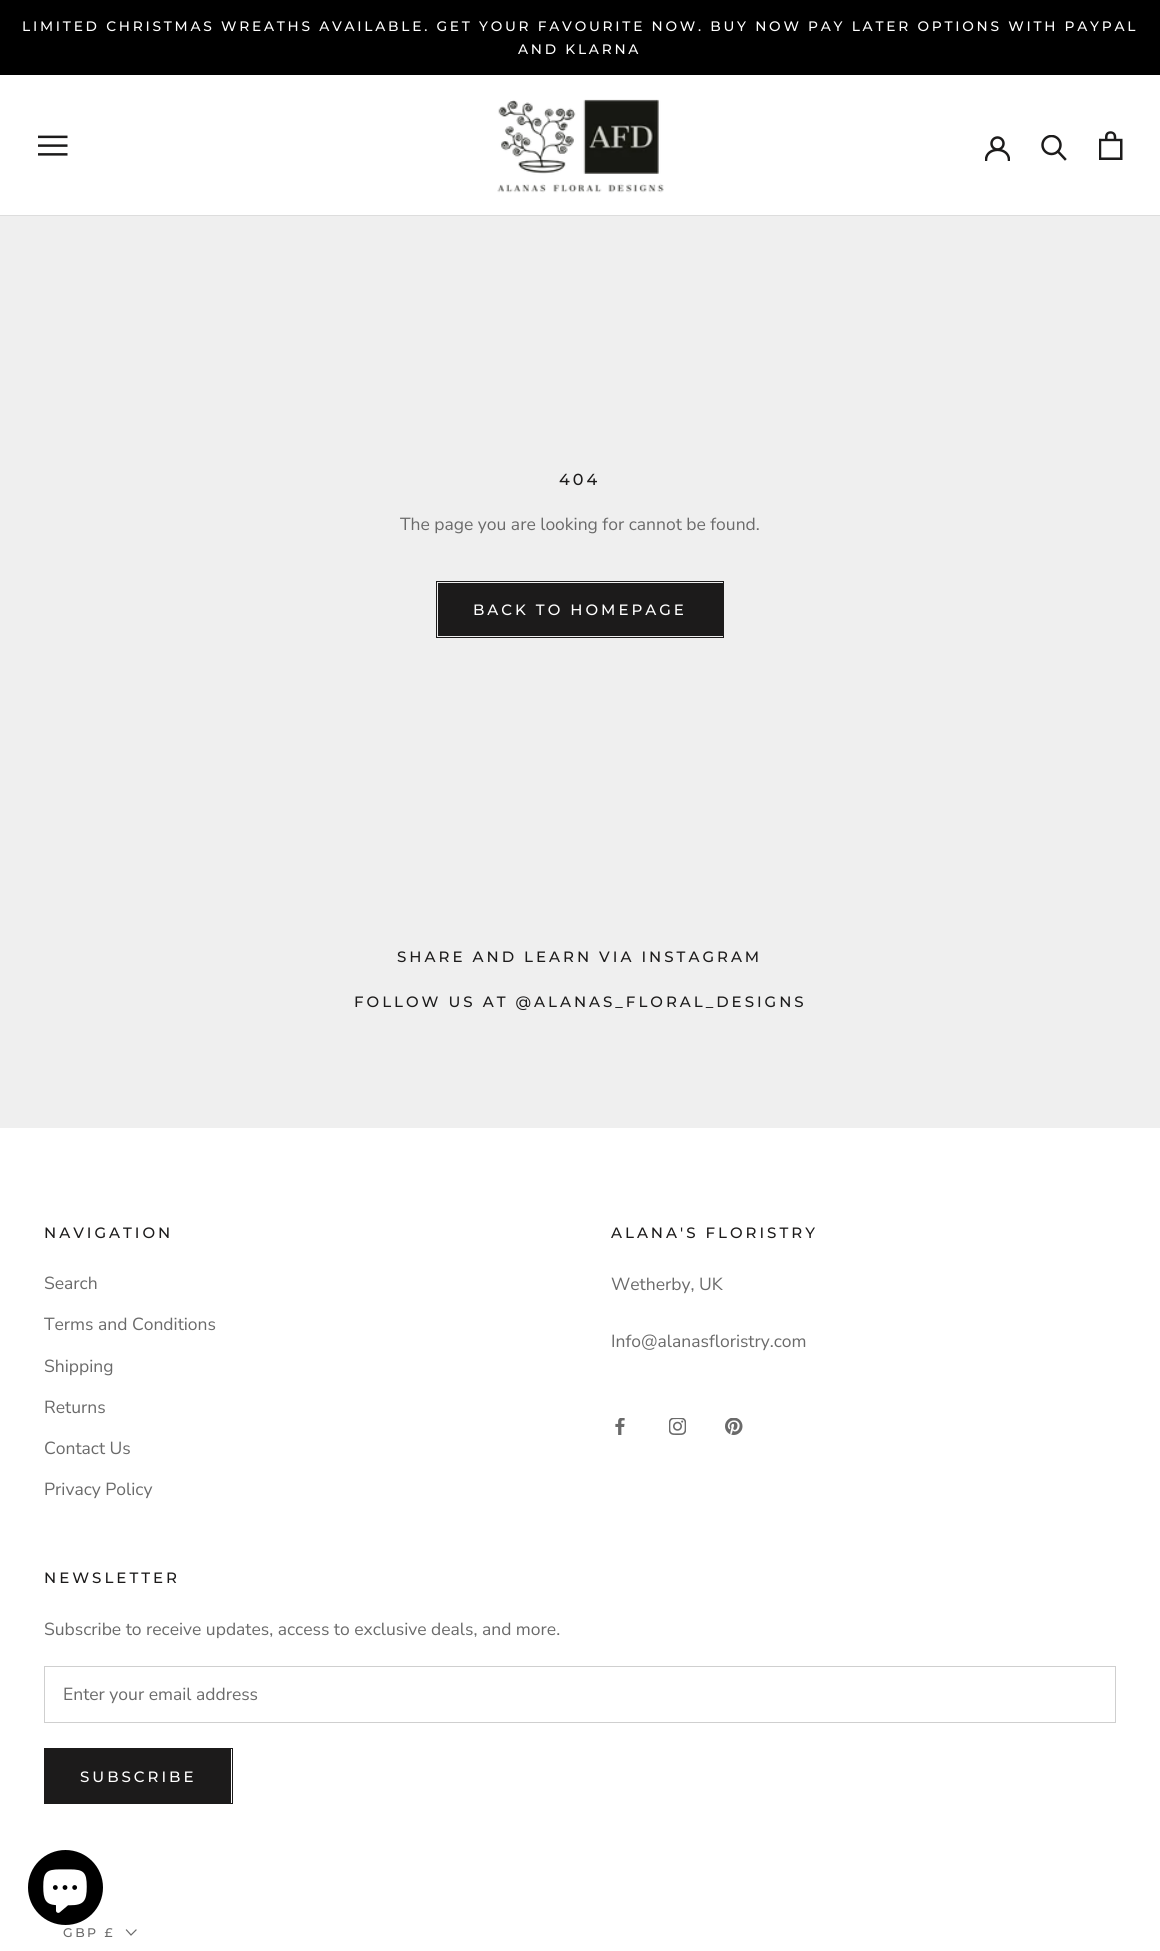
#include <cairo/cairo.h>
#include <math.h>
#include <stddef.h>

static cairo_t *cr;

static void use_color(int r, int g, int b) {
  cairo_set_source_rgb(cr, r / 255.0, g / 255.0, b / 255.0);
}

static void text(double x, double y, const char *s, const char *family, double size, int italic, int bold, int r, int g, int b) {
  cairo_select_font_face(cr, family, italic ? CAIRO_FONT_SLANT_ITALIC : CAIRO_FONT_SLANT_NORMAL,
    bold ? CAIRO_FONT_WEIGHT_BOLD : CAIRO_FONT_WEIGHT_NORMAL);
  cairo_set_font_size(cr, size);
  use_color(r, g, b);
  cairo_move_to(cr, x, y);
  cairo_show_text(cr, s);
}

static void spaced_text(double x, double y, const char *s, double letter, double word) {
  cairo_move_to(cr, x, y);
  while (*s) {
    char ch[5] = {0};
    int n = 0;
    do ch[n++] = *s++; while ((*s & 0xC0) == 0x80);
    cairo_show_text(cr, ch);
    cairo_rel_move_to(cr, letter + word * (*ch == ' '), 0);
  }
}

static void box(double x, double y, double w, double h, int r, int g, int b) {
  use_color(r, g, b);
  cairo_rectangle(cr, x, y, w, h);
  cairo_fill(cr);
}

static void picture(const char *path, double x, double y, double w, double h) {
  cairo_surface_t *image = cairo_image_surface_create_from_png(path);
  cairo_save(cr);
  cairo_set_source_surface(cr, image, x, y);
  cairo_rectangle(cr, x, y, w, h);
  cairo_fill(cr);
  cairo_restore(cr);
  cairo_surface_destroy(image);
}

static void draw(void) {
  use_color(239, 239, 239);
  cairo_paint(cr);
  box(0, 0, 1160, 75, 0, 0, 0);
  box(0, 75, 1160, 140, 255, 255, 255);
  box(0, 215, 1160, 1, 221, 221, 221);
  picture("img_01.png", 38, 135, 30, 21);
  picture("img_02.png", 497, 99, 167, 94);
  cairo_save(cr);
  cairo_rectangle(cr, 985, 136, 25, 25);
  cairo_clip(cr);
  cairo_new_path(cr);
  cairo_move_to(cr, 986, 160);
  cairo_curve_to(cr, 986, 146.5, 1009, 146.5, 1009, 160);
  use_color(28, 27, 27);
  cairo_set_line_width(cr, 2.5);
  cairo_set_line_cap(cr, CAIRO_LINE_CAP_SQUARE);
  cairo_stroke(cr);
  cairo_restore(cr);
  cairo_arc(cr, 997.5, 143.5, 6, 0, 2 * M_PI);
  use_color(28, 27, 27);
  cairo_set_line_width(cr, 2.5);
  cairo_stroke(cr);
  cairo_new_path(cr);
  cairo_move_to(cr, 1065, 159);
  cairo_line_to(cr, 1058, 151.5);
  cairo_set_line_cap(cr, CAIRO_LINE_CAP_SQUARE);
  cairo_stroke(cr);
  cairo_save(cr);
  cairo_rectangle(cr, 1041, 135, 27, 26);
  cairo_clip(cr);
  cairo_arc(cr, 1051.5, 145, 9, 0, 2 * M_PI);
  cairo_set_line_cap(cr, CAIRO_LINE_CAP_BUTT);
  cairo_stroke(cr);
  cairo_restore(cr);
  picture("img_03.png", 1099, 131, 24, 29);
  cairo_rectangle(cr, 436.5, 581.5, 287, 56);
  cairo_set_line_width(cr, 1);
  cairo_set_line_cap(cr, CAIRO_LINE_CAP_BUTT);
  cairo_stroke(cr);
  box(438, 583, 285, 53, 28, 27, 27);
  box(0, 1128, 1160, 823, 255, 255, 255);
  picture("img_04.png", 615, 1418, 10, 17);
  picture("img_05.png", 669, 1418, 17, 17);
  picture("img_06.png", 725, 1418, 18, 17);
  cairo_rectangle(cr, 44.5, 1666.5, 1071, 56);
  use_color(207, 207, 207);
  cairo_stroke(cr);
  cairo_rectangle(cr, 44.5, 1748.5, 188, 55);
  use_color(28, 27, 27);
  cairo_stroke(cr);
  box(45, 1749, 186, 54, 28, 27, 27);
  cairo_new_path(cr);
  cairo_move_to(cr, 136, 1930);
  cairo_line_to(cr, 131, 1935);
  cairo_line_to(cr, 126.5, 1930);
  use_color(106, 106, 106);
  cairo_set_line_width(cr, 1.2);
  cairo_set_line_cap(cr, CAIRO_LINE_CAP_SQUARE);
  cairo_stroke(cr);
  use_color(0, 0, 0);
  cairo_arc(cr, 65.5, 1887.5, 37.5, 0, 2 * M_PI);
  cairo_fill(cr);
  picture("img_07.png", 43, 1869, 44, 44);
  cairo_select_font_face(cr, "Montserrat Medium", CAIRO_FONT_SLANT_NORMAL, CAIRO_FONT_WEIGHT_NORMAL);
  cairo_set_font_size(cr, 13.75);
  use_color(255, 255, 255);
  spaced_text(22, 31, "LIMITED CHRISTMAS WREATHS AVAILABLE. GET YOUR FAVOURITE NOW. BUY NOW PAY LATER OPTIONS WITH PAYPAL", 2.75, 0);
  spaced_text(518, 54, "AND KLARNA", 2.75, 0);
  cairo_set_font_size(cr, 16);
  use_color(28, 27, 27);
  spaced_text(559, 485, "404", 3, 0);
  text(400, 530, "The page you are looking for cannot be found.", "Nunito Sans", 17.5, 0, 0, 106, 106, 106);
  cairo_select_font_face(cr, "Montserrat Medium", CAIRO_FONT_SLANT_NORMAL, CAIRO_FONT_WEIGHT_NORMAL);
  cairo_set_font_size(cr, 15);
  use_color(255, 255, 255);
  spaced_text(473, 615, "BACK TO HOMEPAGE", 3, 0);
  use_color(28, 27, 27);
  spaced_text(397, 962, "SHARE AND LEARN VIA INSTAGRAM", 3, 0);
  spaced_text(354, 1007, "FOLLOW US AT @ALANAS_FLORAL_DESIGNS", 3, 0);
  spaced_text(44, 1238, "NAVIGATION", 3, 0);
  text(44, 1289, "Search", "Nunito Sans", 17.5, 0, 0, 106, 106, 106);
  text(44, 1330, "Terms and Conditions", "Nunito Sans", 17.5, 0, 0, 106, 106, 106);
  text(44, 1372, "Shipping", "Nunito Sans", 17.5, 0, 0, 106, 106, 106);
  text(44, 1413, "Returns", "Nunito Sans", 17.5, 0, 0, 106, 106, 106);
  text(44, 1454, "Contact Us", "Nunito Sans", 17.5, 0, 0, 106, 106, 106);
  text(44, 1495, "Privacy Policy", "Nunito Sans", 17.5, 0, 0, 106, 106, 106);
  cairo_select_font_face(cr, "Montserrat Medium", CAIRO_FONT_SLANT_NORMAL, CAIRO_FONT_WEIGHT_NORMAL);
  cairo_set_font_size(cr, 15);
  use_color(28, 27, 27);
  spaced_text(611, 1238, "ALANA'S FLORISTRY", 3, 0);
  text(611, 1290, "Wetherby, UK", "Nunito Sans", 17.5, 0, 0, 106, 106, 106);
  text(611, 1347, "Info@alanasfloristry.com", "Nunito Sans", 17.5, 0, 0, 106, 106, 106);
  cairo_select_font_face(cr, "Montserrat Medium", CAIRO_FONT_SLANT_NORMAL, CAIRO_FONT_WEIGHT_NORMAL);
  cairo_set_font_size(cr, 15);
  use_color(28, 27, 27);
  spaced_text(44, 1583, "NEWSLETTER", 3, 0);
  text(44, 1635, "Subscribe to receive updates, access to exclusive deals, and more.", "Nunito Sans", 17.5, 0, 0, 106, 106, 106);
  text(63, 1700, "Enter your email address", "Nunito Sans", 17.5, 0, 0, 106, 106, 106);
  cairo_select_font_face(cr, "Montserrat Medium", CAIRO_FONT_SLANT_NORMAL, CAIRO_FONT_WEIGHT_NORMAL);
  cairo_set_font_size(cr, 15);
  use_color(255, 255, 255);
  spaced_text(80, 1782, "SUBSCRIBE", 3, 0);
  cairo_set_font_size(cr, 12.5);
  use_color(106, 106, 106);
  spaced_text(63, 1937, "GBP £", 2.5, 0);
}

int main(void) {
  cairo_surface_t *surface = cairo_image_surface_create(CAIRO_FORMAT_RGB24, 1160, 1951);
  cr = cairo_create(surface);
  cairo_font_options_t *options = cairo_font_options_create();
  cairo_font_options_set_hint_metrics(options, CAIRO_HINT_METRICS_OFF);
  cairo_font_options_set_hint_style(options, CAIRO_HINT_STYLE_NONE);
  cairo_set_font_options(cr, options);
  cairo_set_miter_limit(cr, 4);
  draw();
  cairo_surface_write_to_png(surface, "out.png");
  cairo_font_options_destroy(options);
  cairo_destroy(cr);
  cairo_surface_destroy(surface);
  return 0;
}
